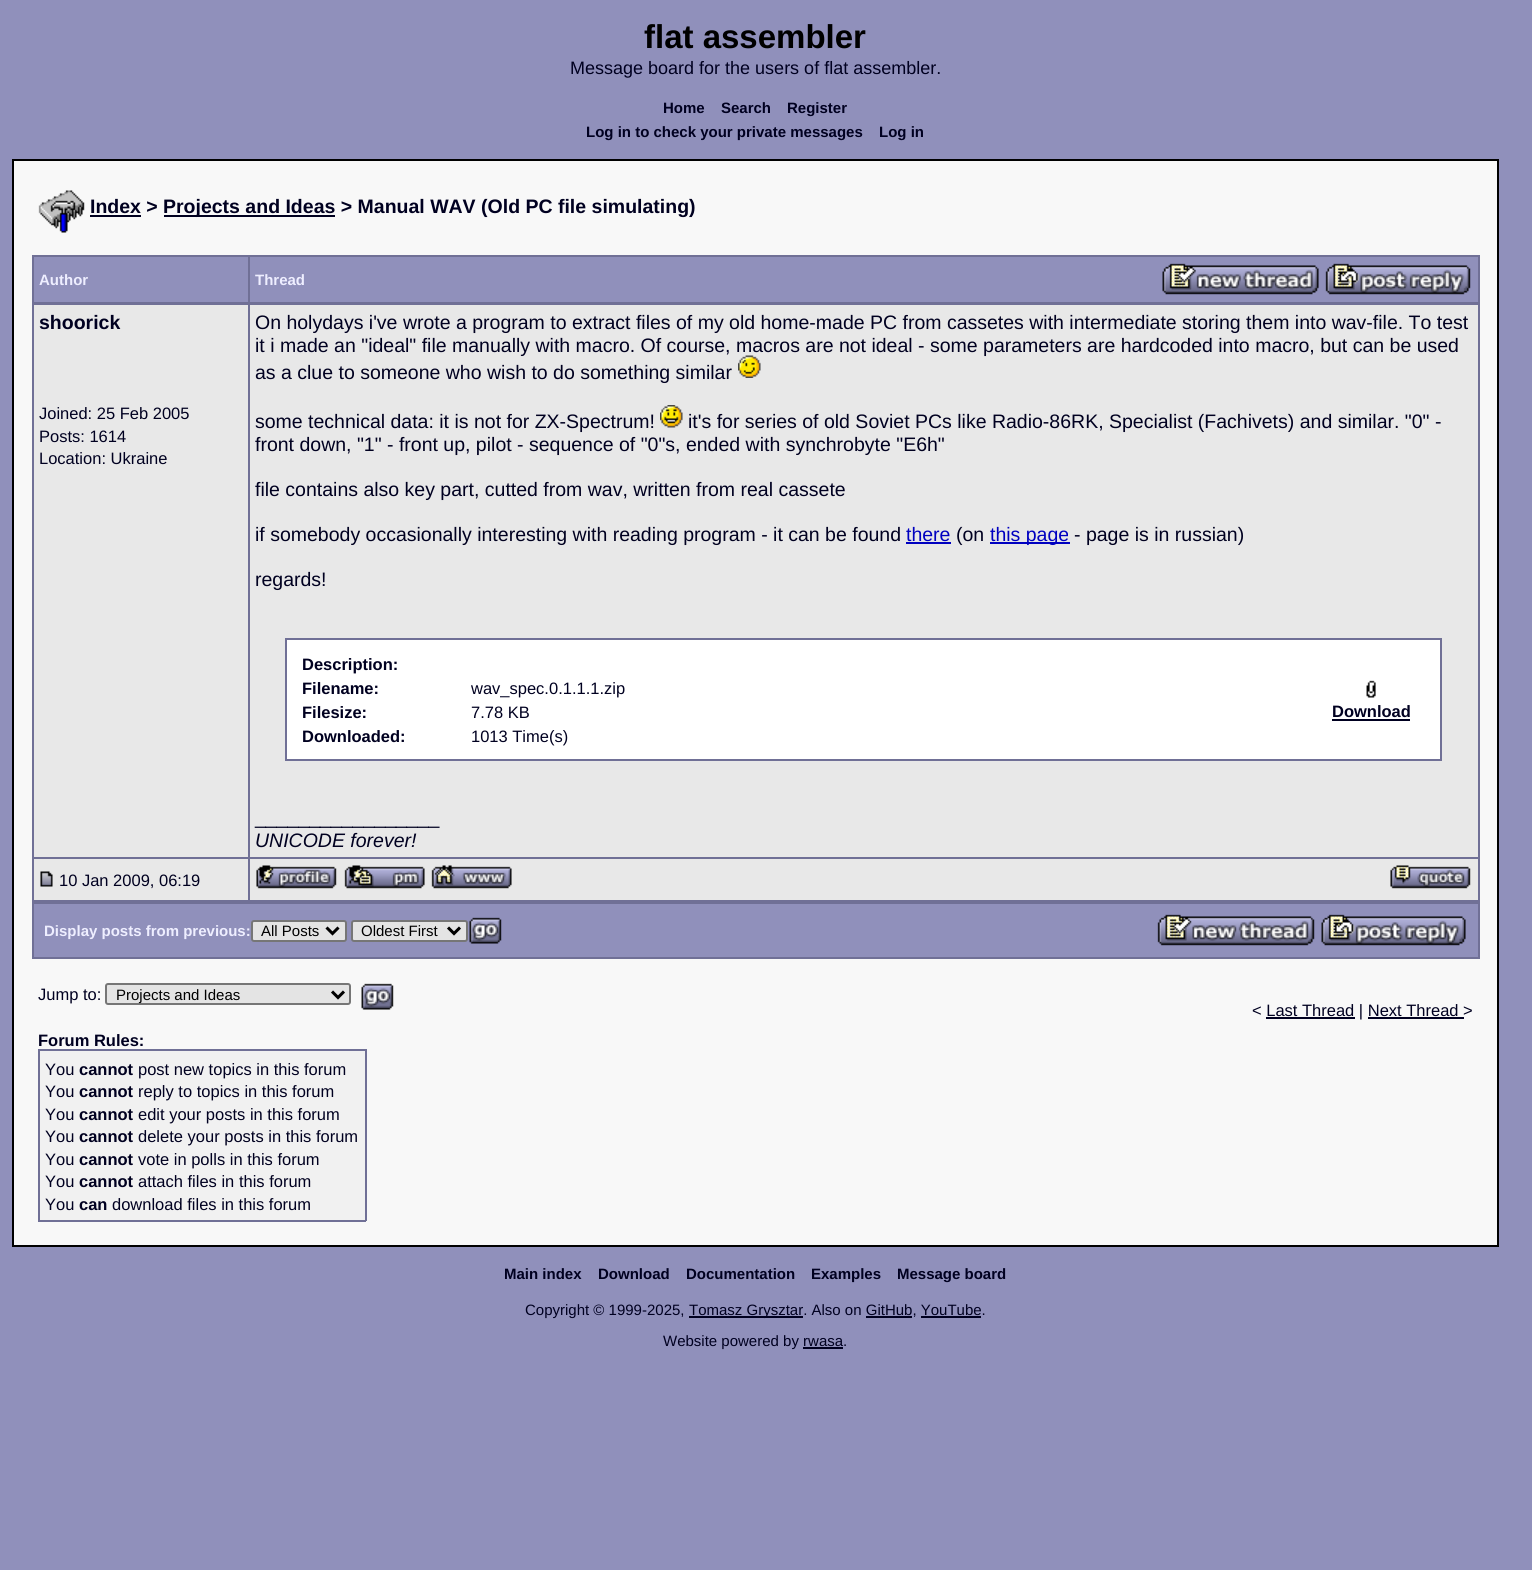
#include <cairo/cairo.h>
#include <math.h>
#include <stddef.h>

static cairo_t *cr;

static void use_color(int r, int g, int b) {
  cairo_set_source_rgb(cr, r / 255.0, g / 255.0, b / 255.0);
}

static void text(double x, double y, const char *s, const char *family, double size, int italic, int bold, int r, int g, int b) {
  cairo_select_font_face(cr, family, italic ? CAIRO_FONT_SLANT_ITALIC : CAIRO_FONT_SLANT_NORMAL,
    bold ? CAIRO_FONT_WEIGHT_BOLD : CAIRO_FONT_WEIGHT_NORMAL);
  cairo_set_font_size(cr, size);
  use_color(r, g, b);
  cairo_move_to(cr, x, y);
  cairo_show_text(cr, s);
}

static void box(double x, double y, double w, double h, int r, int g, int b) {
  use_color(r, g, b);
  cairo_rectangle(cr, x, y, w, h);
  cairo_fill(cr);
}

static void round_rect(double x, double y, double w, double h, double r) {
  cairo_new_sub_path(cr);
  cairo_arc(cr, x + w - r, y + h - r, r, 0, M_PI / 2);
  cairo_arc(cr, x + r, y + h - r, r, M_PI / 2, M_PI);
  cairo_arc(cr, x + r, y + r, r, M_PI, 1.5 * M_PI);
  cairo_arc(cr, x + w - r, y + r, r, 1.5 * M_PI, 2 * M_PI);
  cairo_close_path(cr);
}

static void picture(const char *path, double x, double y, double w, double h) {
  cairo_surface_t *image = cairo_image_surface_create_from_png(path);
  cairo_save(cr);
  cairo_set_source_surface(cr, image, x, y);
  cairo_rectangle(cr, x, y, w, h);
  cairo_fill(cr);
  cairo_restore(cr);
  cairo_surface_destroy(image);
}

static void draw(void) {
  use_color(144, 144, 187);
  cairo_paint(cr);
  use_color(248, 248, 248);
  cairo_rectangle(cr, 13, 160, 1485, 1086);
  cairo_fill_preserve(cr);
  use_color(0, 0, 0);
  cairo_stroke(cr);
  picture("img_01.png", 38, 190, 47, 43);
  box(90, 215, 51, 2, 0, 0, 32);
  box(164, 215, 171, 2, 0, 0, 32);
  box(32, 255, 1447, 2, 112, 112, 150);
  box(1478, 255, 2, 48, 112, 112, 150);
  box(32, 302, 1447, 3, 112, 112, 150);
  box(32, 255, 2, 48, 112, 112, 150);
  box(34, 257, 214, 45, 144, 144, 187);
  box(250, 257, 1228, 45, 144, 144, 187);
  box(248, 255, 2, 48, 112, 112, 150);
  picture("img_02.png", 1162, 263, 157, 32);
  picture("img_03.png", 1325, 263, 146, 32);
  box(1478, 303, 2, 599, 112, 112, 150);
  box(32, 900, 1447, 4, 112, 112, 150);
  box(32, 303, 2, 599, 112, 112, 150);
  box(34, 305, 214, 552, 232, 232, 232);
  box(250, 305, 1228, 552, 232, 232, 232);
  picture("img_05.png", 660, 405, 23, 23);
  box(906, 542, 45, 2, 0, 0, 192);
  box(990, 542, 80, 2, 0, 0, 192);
  use_color(255, 255, 255);
  cairo_rectangle(cr, 286, 639, 1155, 121);
  cairo_fill_preserve(cr);
  use_color(112, 112, 150);
  cairo_stroke(cr);
  picture("img_06.png", 1366, 680, 10, 18);
  box(1332, 719, 78, 2, 0, 0, 32);
  box(32, 857, 1447, 2, 112, 112, 150);
  box(34, 859, 214, 41, 232, 232, 232);
  picture("img_07.png", 40, 871, 13, 16);
  box(250, 859, 1228, 41, 232, 232, 232);
  box(248, 303, 2, 599, 112, 112, 150);
  picture("img_08.png", 256, 865, 81, 24);
  picture("img_09.png", 344, 865, 81, 24);
  picture("img_10.png", 431, 865, 81, 24);
  picture("img_11.png", 1390, 865, 81, 24);
  box(1478, 902, 2, 57, 112, 112, 150);
  box(32, 957, 1447, 2, 112, 112, 150);
  box(32, 902, 2, 57, 112, 112, 150);
  box(34, 904, 1444, 53, 144, 144, 187);
  use_color(228, 228, 228);
  round_rect(252, 921, 94, 20, 2);
  cairo_fill_preserve(cr);
  use_color(118, 118, 118);
  cairo_stroke(cr);
  cairo_new_path(cr);
  cairo_move_to(cr, 326.5, 927.5);
  cairo_line_to(cr, 332.5, 933.5);
  cairo_line_to(cr, 338.5, 927.5);
  use_color(0, 0, 0);
  cairo_set_line_width(cr, 3);
  cairo_stroke(cr);
  use_color(228, 228, 228);
  round_rect(352, 921, 115, 20, 2);
  cairo_fill_preserve(cr);
  use_color(118, 118, 118);
  cairo_set_line_width(cr, 2);
  cairo_stroke(cr);
  cairo_new_path(cr);
  cairo_move_to(cr, 448, 927.5);
  cairo_line_to(cr, 454, 933.5);
  cairo_line_to(cr, 460, 927.5);
  use_color(0, 0, 0);
  cairo_set_line_width(cr, 3);
  cairo_stroke(cr);
  picture("img_12.png", 469, 917, 33, 27);
  picture("img_13.png", 1157, 914, 158, 32);
  picture("img_14.png", 1321, 914, 145, 32);
  use_color(228, 228, 228);
  round_rect(106, 984, 244, 20, 2);
  cairo_fill_preserve(cr);
  use_color(118, 118, 118);
  cairo_set_line_width(cr, 2);
  cairo_stroke(cr);
  cairo_new_path(cr);
  cairo_move_to(cr, 332, 991.5);
  cairo_line_to(cr, 338, 997.5);
  cairo_line_to(cr, 344, 991.5);
  use_color(0, 0, 0);
  cairo_set_line_width(cr, 3);
  cairo_stroke(cr);
  picture("img_15.png", 361, 983, 33, 27);
  box(1266, 1017, 89, 2, 0, 0, 32);
  box(1368, 1017, 96, 2, 0, 0, 32);
  box(38, 1049, 328, 2, 112, 112, 150);
  box(365, 1049, 2, 172, 112, 112, 150);
  box(38, 1220, 328, 2, 112, 112, 150);
  box(38, 1049, 2, 172, 112, 112, 150);
  box(40, 1051, 325, 169, 241, 241, 241);
  box(689, 1316, 114, 2, 0, 0, 32);
  box(866, 1316, 46, 2, 0, 0, 32);
  box(921, 1316, 60, 2, 0, 0, 32);
  box(803, 1347, 40, 2, 0, 0, 32);
  text(644, 48, "flat assembler", "Liberation Sans", 33, 0, 1, 0, 0, 0);
  text(570, 74, "Message board for the users of flat assembler.", "Liberation Sans", 18, 0, 0, 0, 0, 32);
  text(663, 113, "Home", "Liberation Sans", 15, 0, 1, 0, 0, 32);
  text(721, 113, "Search", "Liberation Sans", 15, 0, 1, 0, 0, 32);
  text(787, 113, "Register", "Liberation Sans", 15, 0, 1, 0, 0, 32);
  text(586, 137, "Log in to check your private messages", "Liberation Sans", 15, 0, 1, 0, 0, 32);
  text(879, 137, "Log in", "Liberation Sans", 15, 0, 1, 0, 0, 32);
  text(90, 213, "Index >", "Liberation Sans", 19.5, 0, 1, 0, 0, 32);
  text(163, 213, "Projects and Ideas > Manual WAV (Old PC file simulating)", "Liberation Sans", 19.5, 0, 1, 0, 0, 32);
  text(39, 285, "Author", "Liberation Sans", 15, 0, 1, 238, 238, 255);
  text(255, 285, "Thread", "Liberation Sans", 15, 0, 1, 238, 238, 255);
  text(39, 329, "shoorick", "Liberation Sans", 19.5, 0, 1, 0, 0, 32);
  text(39, 419, "Joined: 25 Feb 2005", "Liberation Sans", 16.5, 0, 0, 0, 0, 32);
  text(39, 442, "Posts: 1614", "Liberation Sans", 16.5, 0, 0, 0, 0, 32);
  text(39, 464, "Location: Ukraine", "Liberation Sans", 16.5, 0, 0, 0, 0, 32);
  text(255, 329, "On holydays i've wrote a program to extract files of my old home-made PC from cassetes with intermediate storing them into wav-file. To test", "Liberation Sans", 19.5, 0, 0, 0, 0, 32);
  text(255, 352, "it i made an \"ideal\" file manually with macro. Of course, macros are not ideal - some parameters are hardcoded into macro, but can be used", "Liberation Sans", 19.5, 0, 0, 0, 0, 32);
  text(255, 379, "as a clue to someone who wish to do something similar", "Liberation Sans", 19.5, 0, 0, 0, 0, 32);
  picture("img_04.png", 738, 355, 23, 23);
  text(255, 428, "some technical data: it is not for ZX-Spectrum!", "Liberation Sans", 19.5, 0, 0, 0, 0, 32);
  text(688, 428, "it's for series of old Soviet PCs like Radio-86RK, Specialist (Fachivets) and similar. \"0\" -", "Liberation Sans", 19.5, 0, 0, 0, 0, 32);
  text(255, 451, "front down, \"1\" - front up, pilot - sequence of \"0\"s, ended with synchrobyte \"E6h\"", "Liberation Sans", 19.5, 0, 0, 0, 0, 32);
  text(255, 496, "file contains also key part, cutted from wav, written from real cassete", "Liberation Sans", 19.5, 0, 0, 0, 0, 32);
  text(255, 541, "if somebody occasionally interesting with reading program - it can be found", "Liberation Sans", 19.5, 0, 0, 0, 0, 32);
  text(906, 541, "there", "Liberation Sans", 19.5, 0, 0, 0, 0, 192);
  text(956, 541, "(on", "Liberation Sans", 19.5, 0, 0, 0, 0, 32);
  text(990, 541, "this page", "Liberation Sans", 19.5, 0, 0, 0, 0, 192);
  text(1074, 541, "- page is in russian)", "Liberation Sans", 19.5, 0, 0, 0, 0, 32);
  text(255, 586, "regards!", "Liberation Sans", 19.5, 0, 0, 0, 0, 32);
  text(302, 670, "Description:", "Liberation Sans", 16.5, 0, 1, 0, 0, 32);
  text(1332, 717, "Download", "Liberation Sans", 16.5, 0, 1, 0, 0, 32);
  text(302, 694, "Filename:", "Liberation Sans", 16.5, 0, 1, 0, 0, 32);
  text(471, 694, "wav_spec.0.1.1.1.zip", "Liberation Sans", 16.5, 0, 0, 0, 0, 32);
  text(302, 718, "Filesize:", "Liberation Sans", 16.5, 0, 1, 0, 0, 32);
  text(471, 718, "7.78 KB", "Liberation Sans", 16.5, 0, 0, 0, 0, 32);
  text(302, 742, "Downloaded:", "Liberation Sans", 16.5, 0, 1, 0, 0, 32);
  text(471, 742, "1013 Time(s)", "Liberation Sans", 16.5, 0, 0, 0, 0, 32);
  text(255, 824, "_________________", "Liberation Sans", 19.5, 0, 0, 0, 0, 32);
  text(255, 847, "UNICODE forever!", "Liberation Sans", 19.5, 1, 0, 0, 0, 32);
  text(59, 886, "10 Jan 2009, 06:19", "Liberation Sans", 16.5, 0, 0, 0, 0, 32);
  text(44, 936, "Display posts from previous:", "Liberation Sans", 15, 0, 1, 238, 238, 255);
  text(261, 936, "All Posts", "Liberation Sans", 15, 0, 0, 0, 0, 0);
  text(361, 936, "Oldest First", "Liberation Sans", 15, 0, 0, 0, 0, 0);
  text(38, 1000, "Jump to:", "Liberation Sans", 16.5, 0, 0, 0, 0, 32);
  text(116, 1000, "Projects and Ideas", "Liberation Sans", 15, 0, 0, 0, 0, 0);
  text(1252, 1016, "< Last Thread | Next Thread >", "Liberation Sans", 16.5, 0, 0, 0, 0, 32);
  text(38, 1046, "Forum Rules:", "Liberation Sans", 16.5, 0, 1, 0, 0, 32);
  text(45, 1075, "You", "Liberation Sans", 16.5, 0, 0, 0, 0, 32);
  text(79, 1075, "cannot", "Liberation Sans", 16.5, 0, 1, 0, 0, 32);
  text(138, 1075, "post new topics in this forum", "Liberation Sans", 16.5, 0, 0, 0, 0, 32);
  text(45, 1097, "You", "Liberation Sans", 16.5, 0, 0, 0, 0, 32);
  text(79, 1097, "cannot", "Liberation Sans", 16.5, 0, 1, 0, 0, 32);
  text(138, 1097, "reply to topics in this forum", "Liberation Sans", 16.5, 0, 0, 0, 0, 32);
  text(45, 1120, "You", "Liberation Sans", 16.5, 0, 0, 0, 0, 32);
  text(79, 1120, "cannot", "Liberation Sans", 16.5, 0, 1, 0, 0, 32);
  text(138, 1120, "edit your posts in this forum", "Liberation Sans", 16.5, 0, 0, 0, 0, 32);
  text(45, 1142, "You", "Liberation Sans", 16.5, 0, 0, 0, 0, 32);
  text(79, 1142, "cannot", "Liberation Sans", 16.5, 0, 1, 0, 0, 32);
  text(138, 1142, "delete your posts in this forum", "Liberation Sans", 16.5, 0, 0, 0, 0, 32);
  text(45, 1165, "You", "Liberation Sans", 16.5, 0, 0, 0, 0, 32);
  text(79, 1165, "cannot", "Liberation Sans", 16.5, 0, 1, 0, 0, 32);
  text(138, 1165, "vote in polls in this forum", "Liberation Sans", 16.5, 0, 0, 0, 0, 32);
  text(45, 1187, "You", "Liberation Sans", 16.5, 0, 0, 0, 0, 32);
  text(79, 1187, "cannot", "Liberation Sans", 16.5, 0, 1, 0, 0, 32);
  text(138, 1187, "attach files in this forum", "Liberation Sans", 16.5, 0, 0, 0, 0, 32);
  text(45, 1210, "You", "Liberation Sans", 16.5, 0, 0, 0, 0, 32);
  text(79, 1210, "can", "Liberation Sans", 16.5, 0, 1, 0, 0, 32);
  text(112, 1210, "download files in this forum", "Liberation Sans", 16.5, 0, 0, 0, 0, 32);
  text(504, 1279, "Main index", "Liberation Sans", 15, 0, 1, 0, 0, 32);
  text(598, 1279, "Download", "Liberation Sans", 15, 0, 1, 0, 0, 32);
  text(686, 1279, "Documentation", "Liberation Sans", 15, 0, 1, 0, 0, 32);
  text(811, 1279, "Examples", "Liberation Sans", 15, 0, 1, 0, 0, 32);
  text(897, 1279, "Message board", "Liberation Sans", 15, 0, 1, 0, 0, 32);
  text(525, 1315, "Copyright © 1999-2025,", "Liberation Sans", 15, 0, 0, 0, 0, 32);
  text(689, 1315, "Tomasz Grysztar. Also on GitHub, YouTube.", "Liberation Sans", 15, 0, 0, 0, 0, 32);
  text(663, 1346, "Website powered by rwasa.", "Liberation Sans", 15, 0, 0, 0, 0, 32);
}

int main(void) {
  cairo_surface_t *surface = cairo_image_surface_create(CAIRO_FORMAT_RGB24, 1532, 1570);
  cr = cairo_create(surface);
  cairo_font_options_t *options = cairo_font_options_create();
  cairo_font_options_set_hint_metrics(options, CAIRO_HINT_METRICS_OFF);
  cairo_font_options_set_hint_style(options, CAIRO_HINT_STYLE_NONE);
  cairo_set_font_options(cr, options);
  cairo_set_miter_limit(cr, 4);
  draw();
  cairo_surface_write_to_png(surface, "out.png");
  cairo_font_options_destroy(options);
  cairo_destroy(cr);
  cairo_surface_destroy(surface);
  return 0;
}
